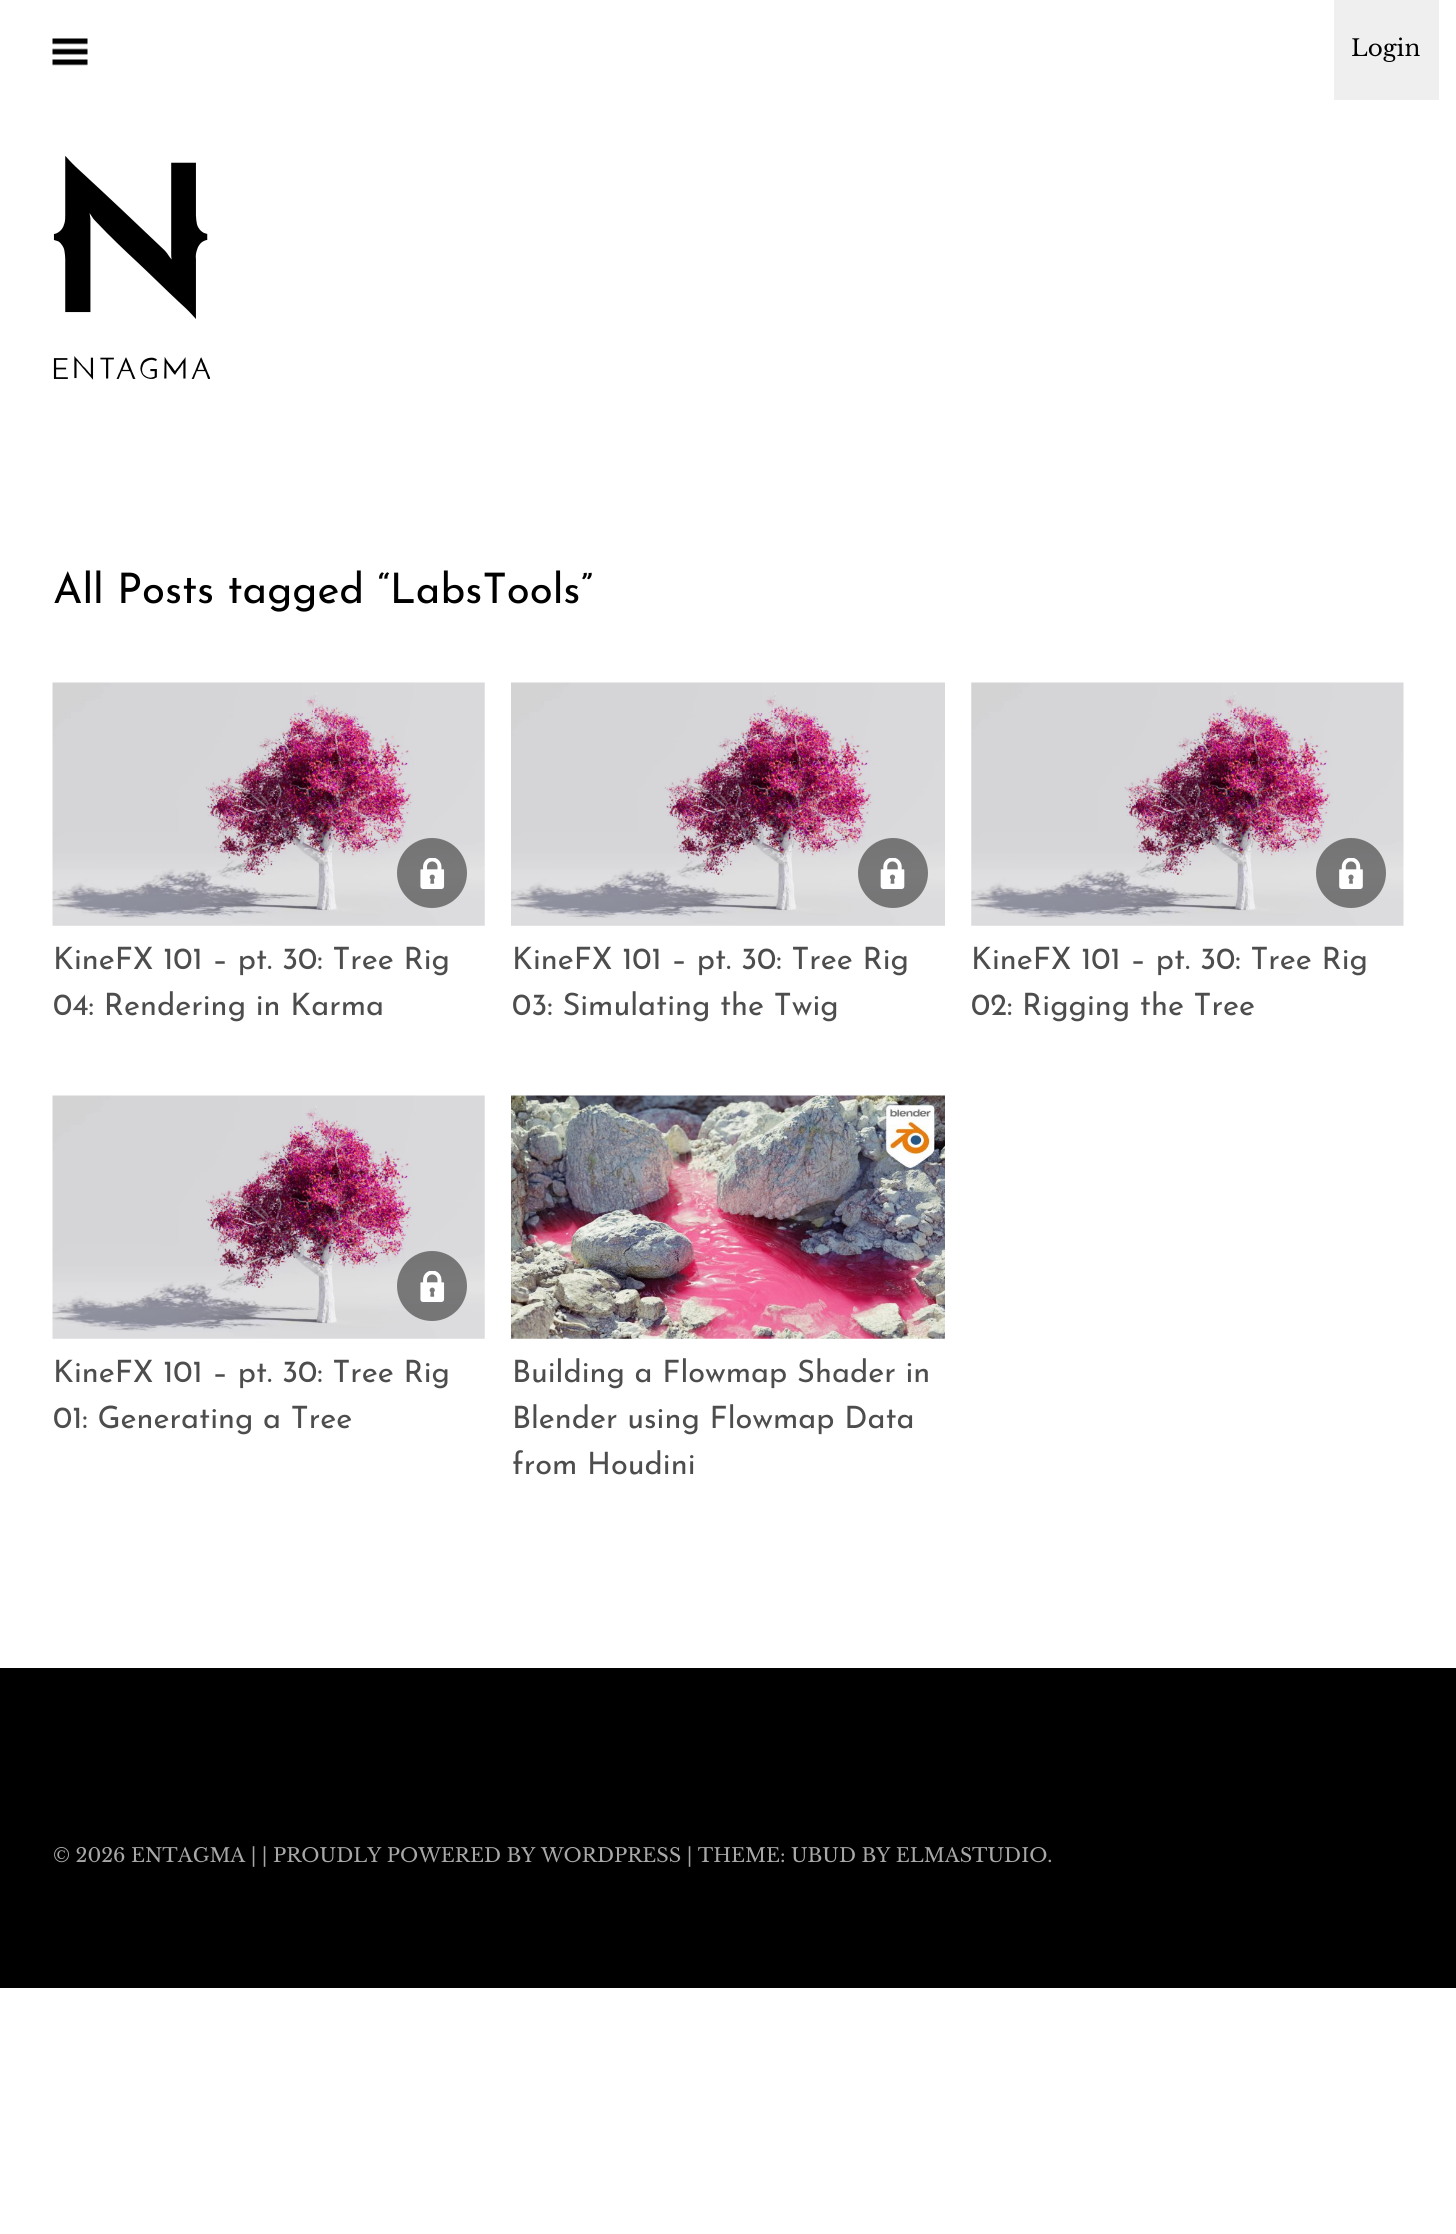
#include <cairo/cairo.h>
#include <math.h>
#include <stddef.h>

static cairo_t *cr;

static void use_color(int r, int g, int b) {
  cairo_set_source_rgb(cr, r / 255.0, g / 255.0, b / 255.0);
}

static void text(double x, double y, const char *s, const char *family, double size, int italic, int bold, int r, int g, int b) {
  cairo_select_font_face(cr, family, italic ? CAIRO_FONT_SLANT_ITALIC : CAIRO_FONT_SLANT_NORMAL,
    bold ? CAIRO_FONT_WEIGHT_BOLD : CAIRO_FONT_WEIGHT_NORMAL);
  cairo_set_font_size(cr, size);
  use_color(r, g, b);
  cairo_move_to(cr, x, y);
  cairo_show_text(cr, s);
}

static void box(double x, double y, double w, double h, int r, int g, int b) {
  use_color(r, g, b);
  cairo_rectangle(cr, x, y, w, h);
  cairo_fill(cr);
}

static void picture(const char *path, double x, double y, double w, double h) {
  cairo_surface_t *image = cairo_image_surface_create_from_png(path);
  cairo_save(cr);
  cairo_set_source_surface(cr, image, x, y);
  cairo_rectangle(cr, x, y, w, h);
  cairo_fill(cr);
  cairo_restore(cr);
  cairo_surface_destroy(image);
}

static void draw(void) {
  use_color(255, 255, 255);
  cairo_paint(cr);
  picture("img_01.png", 52, 38, 36, 28);
  box(1334, 0, 105, 100, 239, 239, 239);
  picture("img_02.png", 53, 156, 157, 224);
  picture("img_03.png", 52, 682, 433, 244);
  cairo_set_source_rgba(cr, 0.2, 0.2, 0.2, 0.6);
  cairo_arc(cr, 432, 873, 35, 0, 2 * M_PI);
  cairo_fill(cr);
  picture("img_04.png", 420, 858, 25, 31);
  picture("img_05.png", 511, 682, 434, 244);
  cairo_arc(cr, 893, 873, 35, 0, 2 * M_PI);
  cairo_fill(cr);
  picture("img_06.png", 880, 858, 25, 31);
  picture("img_07.png", 971, 682, 433, 244);
  cairo_arc(cr, 1351, 873, 35, 0, 2 * M_PI);
  cairo_fill(cr);
  picture("img_08.png", 1339, 858, 24, 31);
  picture("img_03.png", 52, 1095, 433, 244);
  cairo_arc(cr, 432, 1286, 35, 0, 2 * M_PI);
  cairo_fill(cr);
  picture("img_04.png", 420, 1271, 25, 31);
  picture("img_09.png", 511, 1095, 434, 244);
  box(0, 1668, 1456, 320, 0, 0, 0);
  text(1351, 56, "Login", "Libre Baskerville", 23, 0, 0, 0, 0, 0);
  text(53, 603, "All Posts tagged “LabsTools”", "Josefin Sans", 42, 0, 0, 0, 0, 0);
  text(53, 969, "KineFX 101 – pt. 30: Tree Rig", "Josefin Sans", 30.75, 0, 0, 77, 77, 77);
  text(53, 1015, "04: Rendering in Karma", "Josefin Sans", 30.75, 0, 0, 77, 77, 77);
  text(512, 969, "KineFX 101 – pt. 30: Tree Rig", "Josefin Sans", 30.75, 0, 0, 77, 77, 77);
  text(512, 1015, "03: Simulating the Twig", "Josefin Sans", 30.75, 0, 0, 77, 77, 77);
  text(971, 969, "KineFX 101 – pt. 30: Tree Rig", "Josefin Sans", 30.75, 0, 0, 77, 77, 77);
  text(971, 1015, "02: Rigging the Tree", "Josefin Sans", 30.75, 0, 0, 77, 77, 77);
  text(53, 1382, "KineFX 101 – pt. 30: Tree Rig", "Josefin Sans", 30.75, 0, 0, 77, 77, 77);
  text(53, 1428, "01: Generating a Tree", "Josefin Sans", 30.75, 0, 0, 77, 77, 77);
  text(512, 1382, "Building a Flowmap Shader in", "Josefin Sans", 30.75, 0, 0, 77, 77, 77);
  text(512, 1428, "Blender using Flowmap Data", "Josefin Sans", 30.75, 0, 0, 77, 77, 77);
  text(512, 1474, "from Houdini", "Josefin Sans", 30.75, 0, 0, 77, 77, 77);
  text(53, 1862, "© 2026 ENTAGMA | | PROUDLY POWERED BY WORDPRESS | THEME: UBUD BY ELMASTUDIO.", "Libre Baskerville", 19.25, 0, 0, 168, 168, 168);
}

int main(void) {
  cairo_surface_t *surface = cairo_image_surface_create(CAIRO_FORMAT_RGB24, 1456, 2234);
  cr = cairo_create(surface);
  cairo_font_options_t *options = cairo_font_options_create();
  cairo_font_options_set_hint_metrics(options, CAIRO_HINT_METRICS_OFF);
  cairo_font_options_set_hint_style(options, CAIRO_HINT_STYLE_NONE);
  cairo_set_font_options(cr, options);
  cairo_set_miter_limit(cr, 4);
  draw();
  cairo_surface_write_to_png(surface, "out.png");
  cairo_font_options_destroy(options);
  cairo_destroy(cr);
  cairo_surface_destroy(surface);
  return 0;
}
